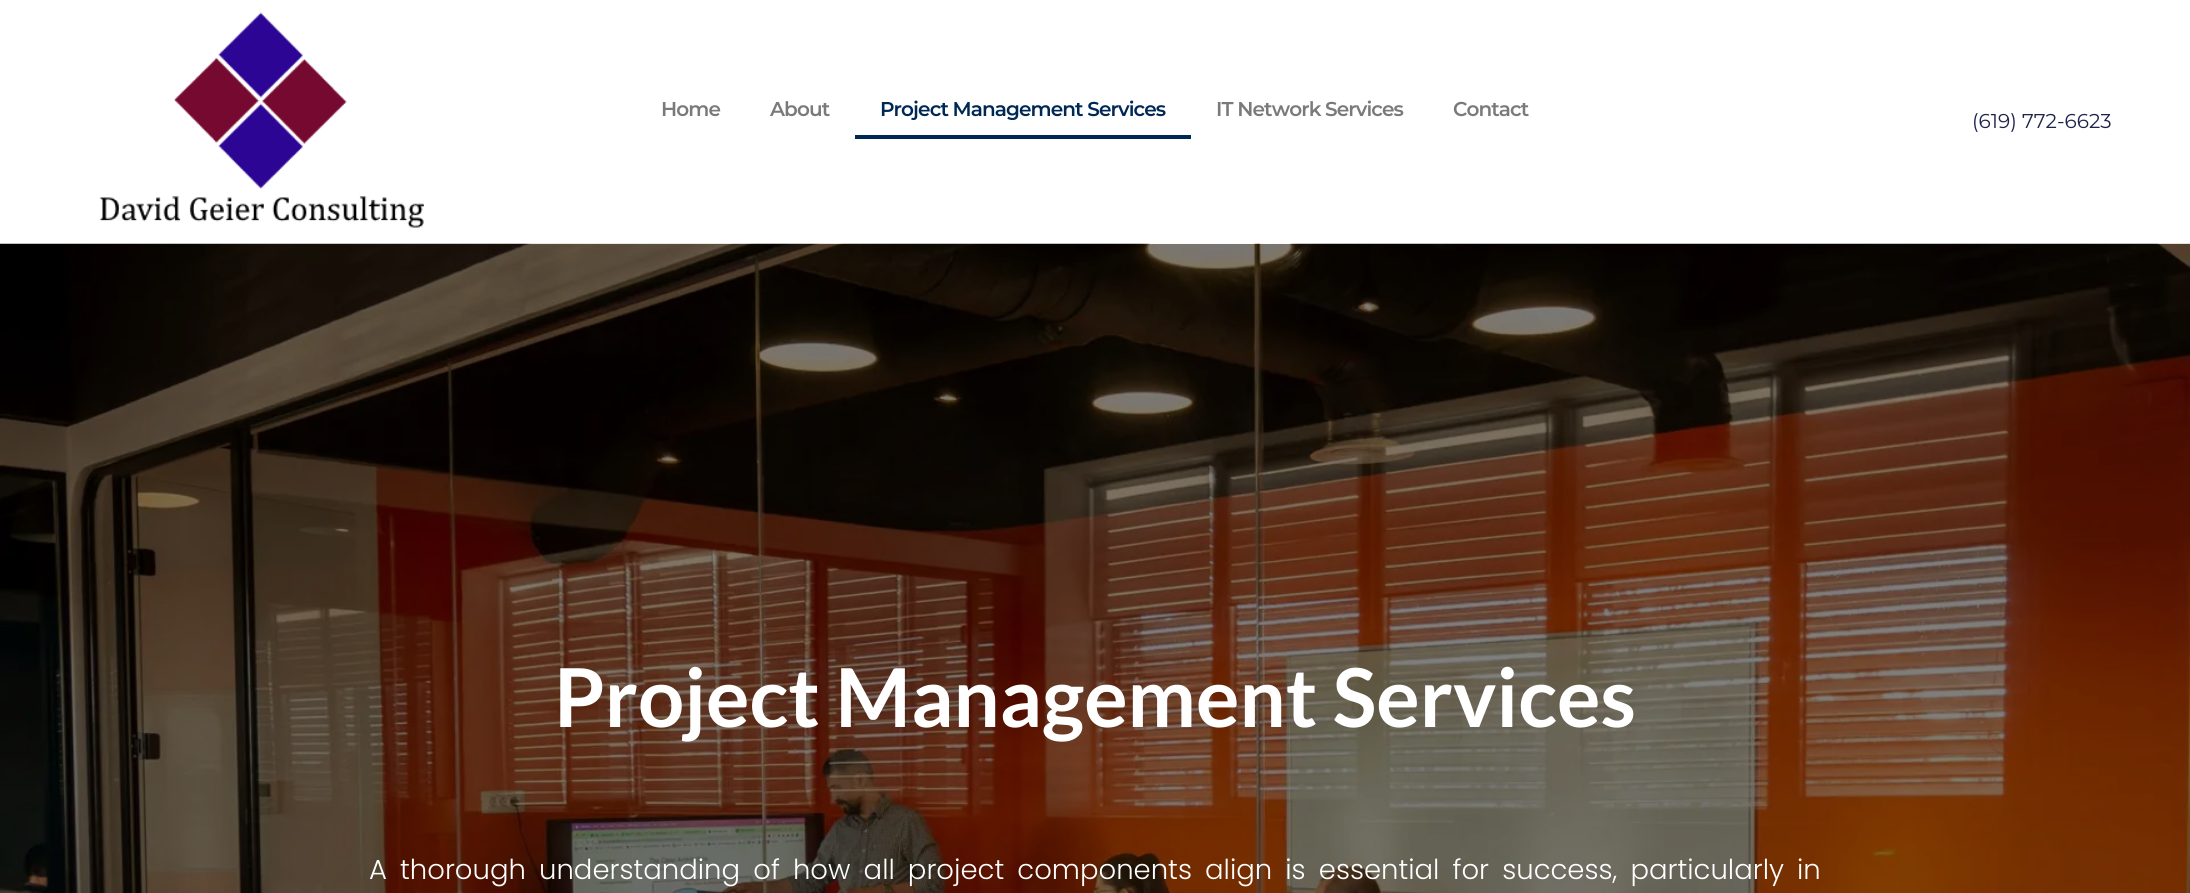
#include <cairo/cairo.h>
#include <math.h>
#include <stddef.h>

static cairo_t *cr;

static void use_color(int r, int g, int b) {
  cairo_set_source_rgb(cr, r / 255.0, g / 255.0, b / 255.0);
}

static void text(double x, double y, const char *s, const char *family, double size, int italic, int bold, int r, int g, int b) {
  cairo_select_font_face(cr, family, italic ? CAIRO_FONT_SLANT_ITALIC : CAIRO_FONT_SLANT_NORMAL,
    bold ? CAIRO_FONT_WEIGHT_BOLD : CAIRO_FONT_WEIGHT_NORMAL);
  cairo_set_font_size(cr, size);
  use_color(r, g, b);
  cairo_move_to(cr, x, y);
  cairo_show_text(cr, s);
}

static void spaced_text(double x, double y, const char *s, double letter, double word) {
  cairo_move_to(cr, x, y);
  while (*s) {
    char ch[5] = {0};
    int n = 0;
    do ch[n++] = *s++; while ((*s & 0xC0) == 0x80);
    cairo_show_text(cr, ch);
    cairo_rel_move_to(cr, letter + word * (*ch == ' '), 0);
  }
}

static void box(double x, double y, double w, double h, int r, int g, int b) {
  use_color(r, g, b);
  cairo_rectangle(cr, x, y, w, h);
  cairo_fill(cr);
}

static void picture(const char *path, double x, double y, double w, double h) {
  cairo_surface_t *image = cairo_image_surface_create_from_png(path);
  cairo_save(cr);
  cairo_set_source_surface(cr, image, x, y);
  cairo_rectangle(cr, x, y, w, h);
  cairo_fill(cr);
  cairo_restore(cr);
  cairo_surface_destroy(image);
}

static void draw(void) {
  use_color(255, 255, 255);
  cairo_paint(cr);
  picture("img_01.png", 99, 12, 325, 216);
  box(855, 135, 336, 4, 0, 40, 85);
  picture("img_02.png", 0, 243, 2190, 650);
  cairo_select_font_face(cr, "Montserrat SemiBold", CAIRO_FONT_SLANT_NORMAL, CAIRO_FONT_WEIGHT_NORMAL);
  cairo_set_font_size(cr, 20);
  use_color(122, 122, 122);
  spaced_text(661, 116, "Home", -0.9, 0);
  spaced_text(770, 116, "About", -0.9, 0);
  use_color(0, 40, 85);
  spaced_text(880, 116, "Project Management Services", -0.9, 0);
  use_color(122, 122, 122);
  spaced_text(1216, 116, "IT Network Services", -0.9, 0);
  spaced_text(1453, 116, "Contact", -0.9, 0);
  text(1972, 128, "(619) 772-6623", "Montserrat", 20, 0, 0, 28, 36, 75);
  text(554, 727, "Project Management Services", "Lato", 81.25, 0, 1, 255, 255, 255);
  cairo_select_font_face(cr, "Poppins Light", CAIRO_FONT_SLANT_NORMAL, CAIRO_FONT_WEIGHT_NORMAL);
  cairo_set_font_size(cr, 27.5);
  spaced_text(369, 879, "A thorough understanding of how all project components align is essential for success, particularly in", 0, 5.6);
}

int main(void) {
  cairo_surface_t *surface = cairo_image_surface_create(CAIRO_FORMAT_RGB24, 2190, 893);
  cr = cairo_create(surface);
  cairo_font_options_t *options = cairo_font_options_create();
  cairo_font_options_set_hint_metrics(options, CAIRO_HINT_METRICS_OFF);
  cairo_font_options_set_hint_style(options, CAIRO_HINT_STYLE_NONE);
  cairo_set_font_options(cr, options);
  cairo_set_miter_limit(cr, 4);
  draw();
  cairo_surface_write_to_png(surface, "out.png");
  cairo_font_options_destroy(options);
  cairo_destroy(cr);
  cairo_surface_destroy(surface);
  return 0;
}
